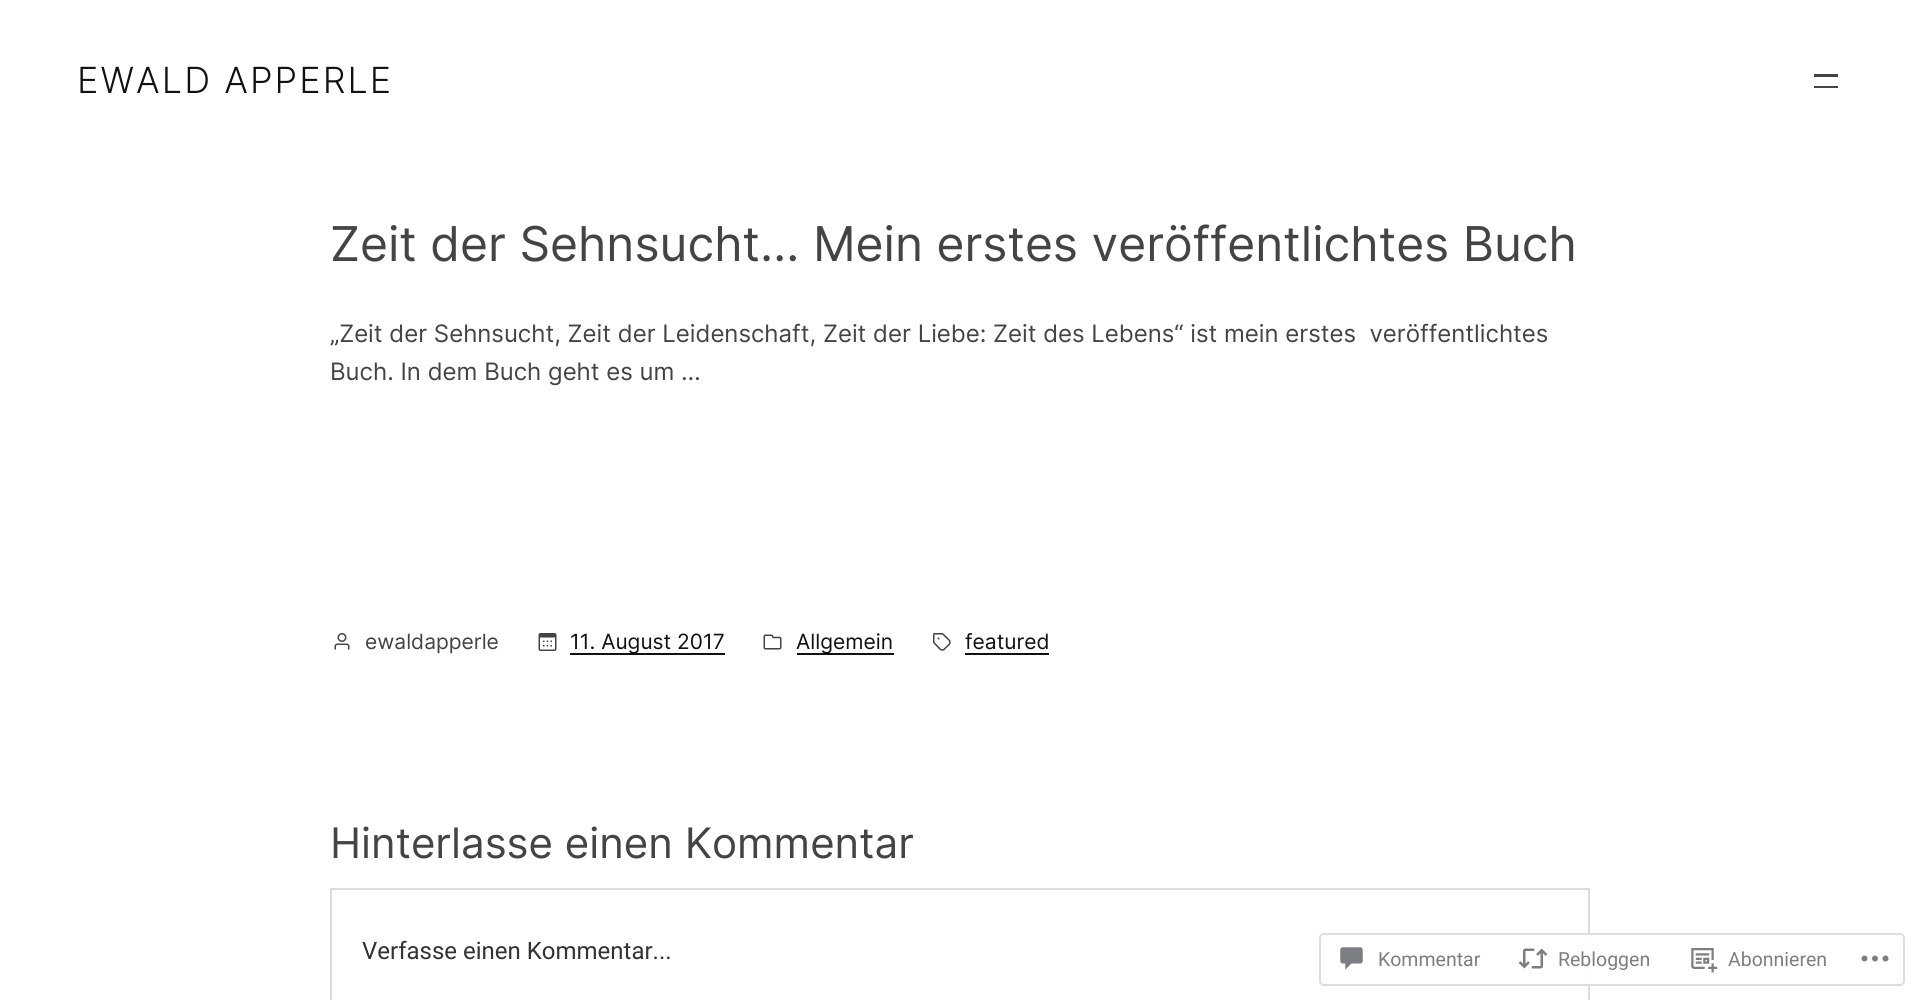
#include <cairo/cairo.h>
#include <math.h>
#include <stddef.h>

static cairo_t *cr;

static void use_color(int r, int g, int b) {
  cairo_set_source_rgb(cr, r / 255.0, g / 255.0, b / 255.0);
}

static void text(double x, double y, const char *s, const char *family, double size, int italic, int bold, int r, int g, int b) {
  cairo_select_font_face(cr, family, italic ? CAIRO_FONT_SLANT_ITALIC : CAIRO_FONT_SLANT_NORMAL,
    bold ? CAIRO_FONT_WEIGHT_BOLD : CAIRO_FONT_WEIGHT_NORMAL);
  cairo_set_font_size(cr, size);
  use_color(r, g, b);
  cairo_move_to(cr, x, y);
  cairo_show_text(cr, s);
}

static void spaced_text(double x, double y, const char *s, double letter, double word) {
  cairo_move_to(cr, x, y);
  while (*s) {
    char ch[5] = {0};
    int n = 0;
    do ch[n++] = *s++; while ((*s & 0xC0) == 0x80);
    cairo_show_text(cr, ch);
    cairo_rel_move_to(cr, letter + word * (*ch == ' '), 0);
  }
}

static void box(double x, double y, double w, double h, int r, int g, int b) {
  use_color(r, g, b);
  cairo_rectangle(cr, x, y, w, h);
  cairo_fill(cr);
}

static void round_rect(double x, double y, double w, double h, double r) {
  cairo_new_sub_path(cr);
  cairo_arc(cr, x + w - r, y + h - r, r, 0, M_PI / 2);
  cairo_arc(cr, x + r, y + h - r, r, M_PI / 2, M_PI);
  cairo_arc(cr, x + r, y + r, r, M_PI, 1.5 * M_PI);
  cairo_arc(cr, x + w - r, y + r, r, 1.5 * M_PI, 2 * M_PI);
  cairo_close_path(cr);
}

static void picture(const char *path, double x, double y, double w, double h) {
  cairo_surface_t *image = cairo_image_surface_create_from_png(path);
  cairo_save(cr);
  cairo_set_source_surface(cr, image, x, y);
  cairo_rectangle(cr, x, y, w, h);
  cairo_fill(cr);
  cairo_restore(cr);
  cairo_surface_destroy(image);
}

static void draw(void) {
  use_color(255, 255, 255);
  cairo_paint(cr);
  box(1814, 74, 24, 3, 68, 68, 68);
  box(1814, 86, 24, 2, 68, 68, 68);
  picture("img_01.png", 334, 633, 16, 17);
  picture("img_02.png", 538, 633, 19, 18);
  box(570, 653, 155, 2, 17, 17, 17);
  picture("img_03.png", 763, 634, 19, 16);
  box(797, 653, 97, 2, 17, 17, 17);
  picture("img_04.png", 933, 633, 18, 18);
  box(965, 653, 84, 2, 17, 17, 17);
  cairo_rectangle(cr, 331, 889, 1258, 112);
  use_color(220, 220, 222);
  cairo_stroke(cr);
  cairo_set_source_rgba(cr, 1, 1, 1, 0.98);
  round_rect(1320, 934, 584, 51, 4);
  cairo_fill_preserve(cr);
  use_color(221, 221, 223);
  cairo_stroke(cr);
  picture("img_05.png", 1340, 947, 23, 23);
  picture("img_06.png", 1518, 948, 30, 21);
  picture("img_07.png", 1691, 948, 27, 25);
  picture("img_08.png", 1861, 955, 28, 7);
  cairo_select_font_face(cr, "Inter Light", CAIRO_FONT_SLANT_NORMAL, CAIRO_FONT_WEIGHT_NORMAL);
  cairo_set_font_size(cr, 36);
  use_color(17, 17, 17);
  spaced_text(77, 93, "EWALD APPERLE", 2.1, 0);
  text(330, 261, "Zeit der Sehnsucht… Mein erstes veröffentlichtes Buch", "Inter", 48, 0, 0, 68, 68, 68);
  text(330, 342, "„Zeit der Sehnsucht, Zeit der Leidenschaft, Zeit der Liebe: Zeit des Lebens“ ist mein erstes  veröffentlichtes", "Inter", 24, 0, 0, 68, 68, 68);
  text(330, 380, "Buch. In dem Buch geht es um …", "Inter", 24, 0, 0, 68, 68, 68);
  text(365, 649, "ewaldapperle", "Inter", 21, 0, 0, 68, 68, 68);
  text(570, 649, "11. August 2017", "Inter", 21, 0, 0, 17, 17, 17);
  text(796, 649, "Allgemein", "Inter", 21, 0, 0, 17, 17, 17);
  text(965, 649, "featured", "Inter", 21, 0, 0, 17, 17, 17);
  text(330, 858, "Hinterlasse einen Kommentar", "Inter", 42, 0, 0, 68, 68, 68);
  text(362, 959, "Verfasse einen Kommentar...", "Roboto", 24, 0, 0, 51, 51, 51);
  text(1378, 966, "Kommentar", "Roboto", 19.5, 0, 0, 123, 127, 133);
  text(1558, 966, "Rebloggen", "Roboto", 19.5, 0, 0, 123, 127, 133);
  text(1728, 966, "Abonnieren", "Roboto", 19.5, 0, 0, 123, 127, 133);
}

int main(void) {
  cairo_surface_t *surface = cairo_image_surface_create(CAIRO_FORMAT_RGB24, 1920, 1000);
  cr = cairo_create(surface);
  cairo_font_options_t *options = cairo_font_options_create();
  cairo_font_options_set_hint_metrics(options, CAIRO_HINT_METRICS_OFF);
  cairo_font_options_set_hint_style(options, CAIRO_HINT_STYLE_NONE);
  cairo_set_font_options(cr, options);
  cairo_set_miter_limit(cr, 4);
  draw();
  cairo_surface_write_to_png(surface, "out.png");
  cairo_font_options_destroy(options);
  cairo_destroy(cr);
  cairo_surface_destroy(surface);
  return 0;
}
